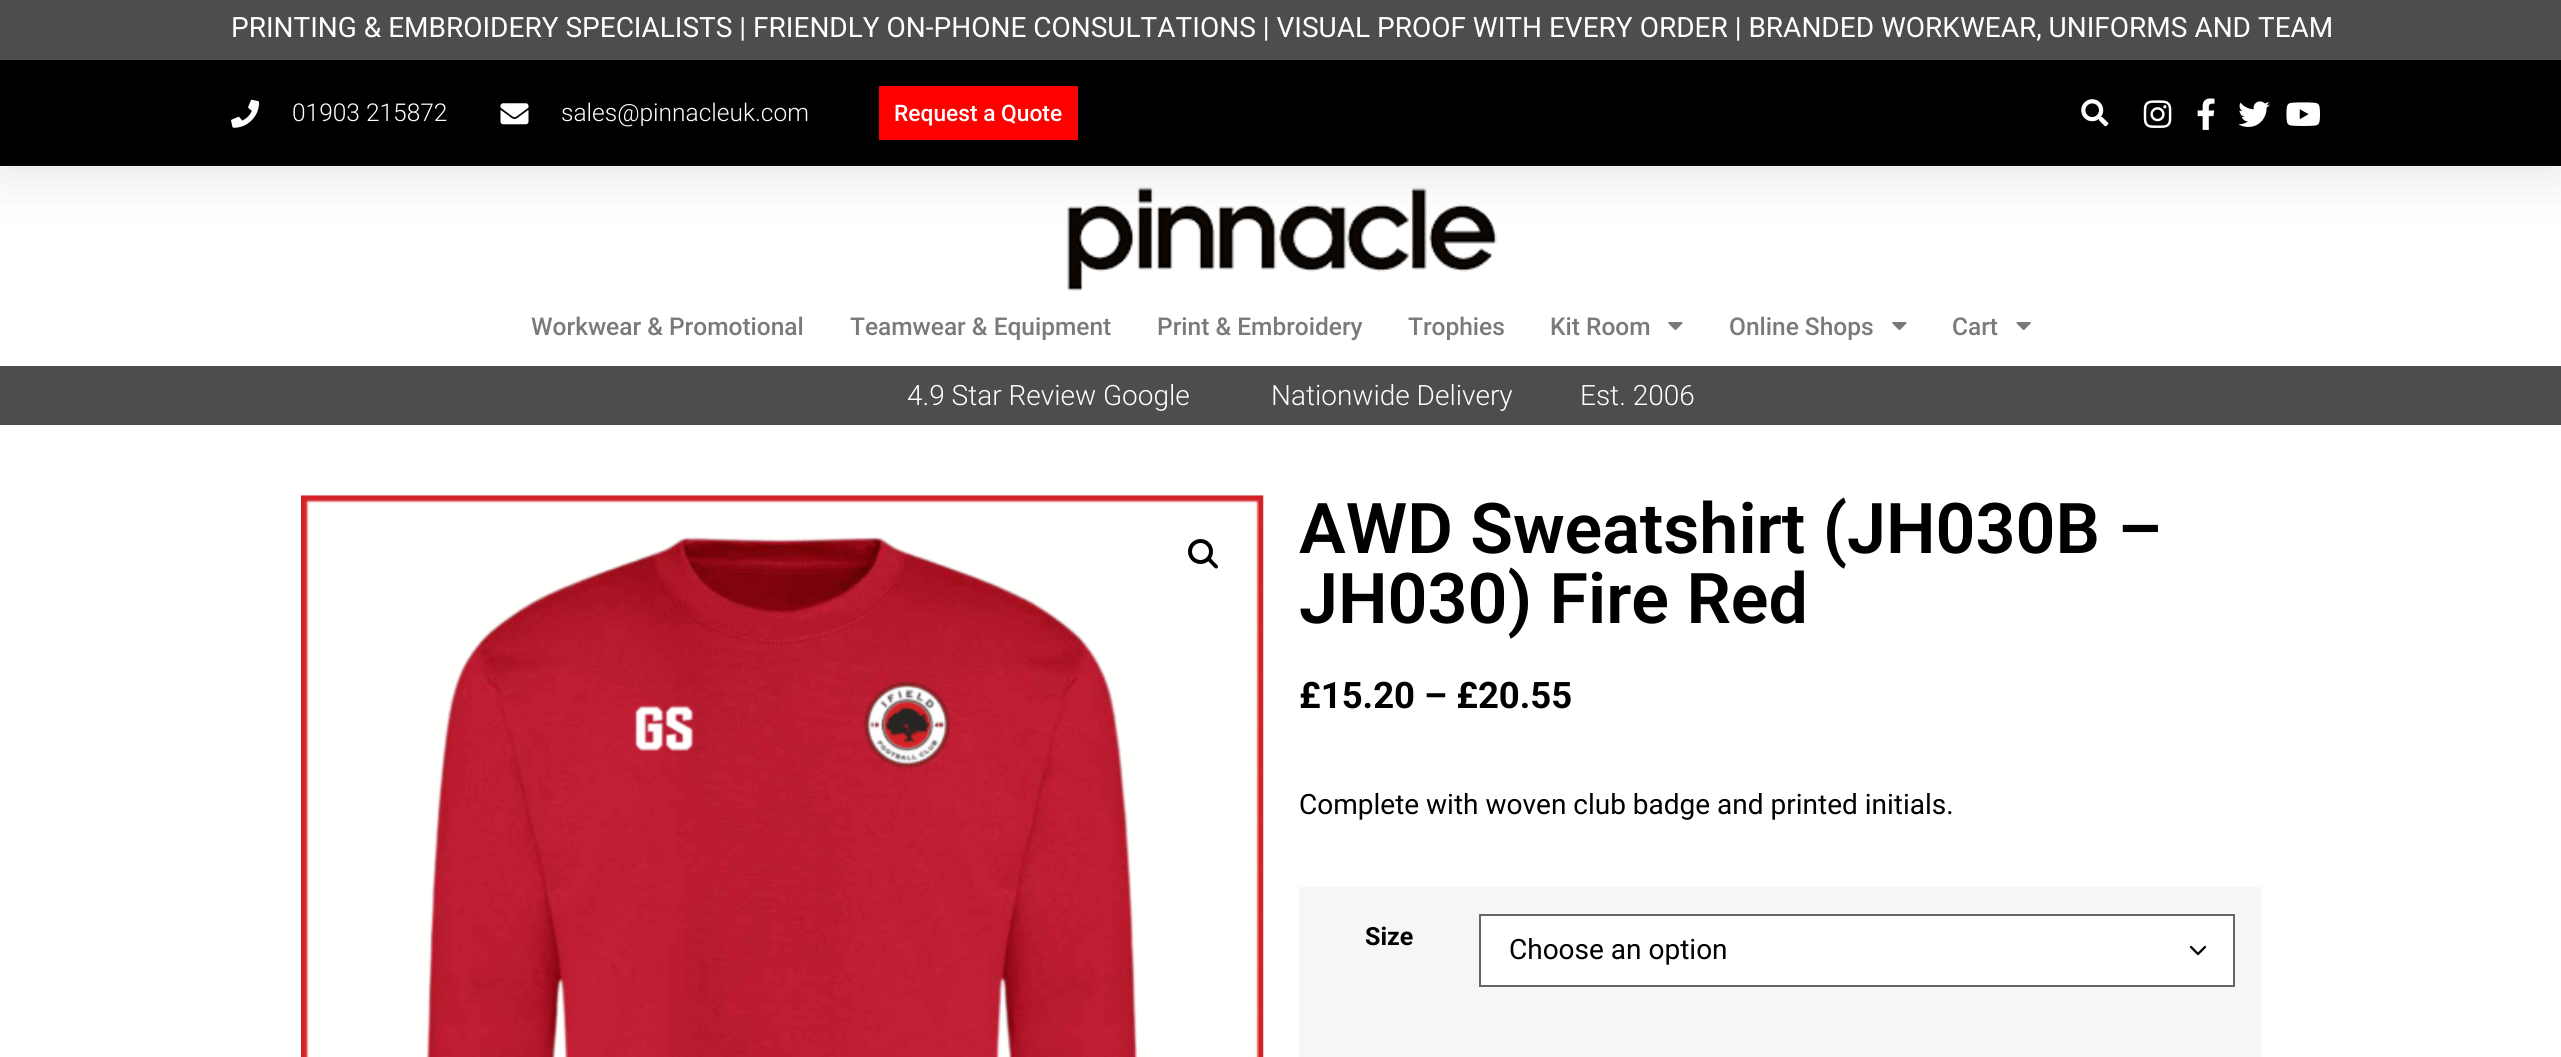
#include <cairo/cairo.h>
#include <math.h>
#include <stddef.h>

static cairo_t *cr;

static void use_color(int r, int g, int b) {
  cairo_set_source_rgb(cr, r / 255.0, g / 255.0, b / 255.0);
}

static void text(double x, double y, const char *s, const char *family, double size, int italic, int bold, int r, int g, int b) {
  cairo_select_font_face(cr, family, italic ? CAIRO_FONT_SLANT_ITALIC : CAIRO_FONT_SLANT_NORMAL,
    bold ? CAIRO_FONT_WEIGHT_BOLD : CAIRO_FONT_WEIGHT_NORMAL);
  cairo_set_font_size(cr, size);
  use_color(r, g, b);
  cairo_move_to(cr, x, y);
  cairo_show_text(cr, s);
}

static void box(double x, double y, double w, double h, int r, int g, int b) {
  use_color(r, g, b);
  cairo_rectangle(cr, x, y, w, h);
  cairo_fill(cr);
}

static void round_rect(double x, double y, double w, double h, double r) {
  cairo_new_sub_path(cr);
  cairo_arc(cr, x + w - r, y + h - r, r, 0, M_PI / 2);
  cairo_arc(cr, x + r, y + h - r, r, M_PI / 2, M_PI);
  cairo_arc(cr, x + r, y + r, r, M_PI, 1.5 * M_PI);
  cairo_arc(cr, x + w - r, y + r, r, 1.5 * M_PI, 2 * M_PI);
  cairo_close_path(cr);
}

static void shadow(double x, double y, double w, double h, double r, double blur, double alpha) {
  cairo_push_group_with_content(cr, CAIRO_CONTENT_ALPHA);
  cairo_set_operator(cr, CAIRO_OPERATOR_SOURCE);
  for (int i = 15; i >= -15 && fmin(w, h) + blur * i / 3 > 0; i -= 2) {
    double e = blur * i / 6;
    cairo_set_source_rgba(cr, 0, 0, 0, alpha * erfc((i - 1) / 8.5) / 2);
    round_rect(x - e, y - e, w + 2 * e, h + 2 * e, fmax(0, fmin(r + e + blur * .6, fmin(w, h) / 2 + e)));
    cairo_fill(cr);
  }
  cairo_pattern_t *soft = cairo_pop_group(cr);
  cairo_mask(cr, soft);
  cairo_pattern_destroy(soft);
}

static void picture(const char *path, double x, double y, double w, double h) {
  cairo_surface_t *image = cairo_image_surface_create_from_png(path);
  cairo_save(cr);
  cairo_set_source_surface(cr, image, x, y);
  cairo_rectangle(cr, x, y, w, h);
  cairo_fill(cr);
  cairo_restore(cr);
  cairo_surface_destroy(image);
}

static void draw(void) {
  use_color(255, 255, 255);
  cairo_paint(cr);
  picture("img_08.png", 1067, 187, 430, 104);
  use_color(0, 0, 0);
  shadow(0, 9, 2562, 166, 0, 26, 0.1);
  box(0, 0, 2561, 60, 78, 77, 77);
  box(0, 60, 2561, 106, 0, 0, 0);
  picture("img_01.png", 231, 99, 29, 29);
  picture("img_02.png", 500, 103, 29, 22);
  box(879, 86, 199, 54, 255, 0, 0);
  picture("img_03.png", 2081, 99, 28, 28);
  picture("img_04.png", 2143, 100, 29, 28);
  picture("img_05.png", 2197, 98, 18, 32);
  picture("img_06.png", 2238, 101, 32, 26);
  picture("img_07.png", 2286, 102, 34, 24);
  picture("img_09.png", 1668, 322, 15, 8);
  picture("img_09.png", 1892, 322, 15, 8);
  picture("img_10.png", 2016, 322, 15, 8);
  box(0, 366, 2561, 59, 78, 77, 77);
  picture("img_11.png", 301, 495, 963, 562);
  cairo_arc(cr, 1200.5, 551.5, 10.5, 0, 2 * M_PI);
  use_color(0, 0, 0);
  cairo_set_line_width(cr, 4);
  cairo_stroke(cr);
  cairo_new_path(cr);
  cairo_move_to(cr, 1208, 558);
  cairo_curve_to(cr, 1210, 556, 1213, 561, 1214, 562);
  cairo_curve_to(cr, 1215, 563, 1219.5, 566, 1217.5, 568);
  cairo_curve_to(cr, 1215.5, 570, 1212.5, 565.5, 1211.5, 564.5);
  cairo_curve_to(cr, 1210.5, 563.5, 1206, 560, 1208, 558);
  cairo_close_path(cr);
  cairo_fill(cr);
  box(1299, 887, 180, 170, 246, 246, 246);
  box(1479, 887, 782, 170, 247, 247, 247);
  box(1481, 916, 752, 69, 255, 255, 255);
  cairo_new_path(cr);
  cairo_move_to(cr, 2191, 947);
  cairo_line_to(cr, 2198, 954);
  cairo_line_to(cr, 2205, 947);
  use_color(0, 0, 0);
  cairo_set_line_width(cr, 2.3);
  cairo_set_line_cap(cr, CAIRO_LINE_CAP_ROUND);
  cairo_set_line_join(cr, CAIRO_LINE_JOIN_ROUND);
  cairo_stroke(cr);
  cairo_rectangle(cr, 1480, 915, 754, 71);
  use_color(102, 102, 102);
  cairo_set_line_width(cr, 2);
  cairo_set_line_cap(cr, CAIRO_LINE_CAP_BUTT);
  cairo_set_line_join(cr, CAIRO_LINE_JOIN_MITER);
  cairo_stroke(cr);
  text(231, 37, "PRINTING & EMBROIDERY SPECIALISTS | FRIENDLY ON-PHONE CONSULTATIONS | VISUAL PROOF WITH EVERY ORDER | BRANDED WORKWEAR, UNIFORMS AND TEAM", "Roboto", 28, 0, 0, 255, 255, 255);
  text(292, 121, "01903 215872", "Roboto Light", 24.5, 0, 0, 255, 255, 255);
  text(561, 121, "sales@pinnacleuk.com", "Roboto Light", 24.5, 0, 0, 255, 255, 255);
  text(894, 121, "Request a Quote", "Roboto Medium", 22.75, 0, 0, 255, 255, 255);
  text(531, 335, "Workwear & Promotional", "Roboto Medium", 24.5, 0, 0, 122, 122, 122);
  text(850, 335, "Teamwear & Equipment", "Roboto Medium", 24.5, 0, 0, 122, 122, 122);
  text(1157, 335, "Print & Embroidery", "Roboto Medium", 24.5, 0, 0, 122, 122, 122);
  text(1408, 335, "Trophies", "Roboto Medium", 24.5, 0, 0, 122, 122, 122);
  text(1550, 335, "Kit Room", "Roboto Medium", 24.5, 0, 0, 122, 122, 122);
  text(1729, 335, "Online Shops", "Roboto Medium", 24.5, 0, 0, 122, 122, 122);
  text(1952, 335, "Cart", "Roboto Medium", 24.5, 0, 0, 122, 122, 122);
  text(907, 405, "4.9 Star Review Google", "Roboto Light", 28, 0, 0, 255, 255, 255);
  text(1271, 405, "Nationwide Delivery", "Roboto Light", 28, 0, 0, 255, 255, 255);
  text(1580, 405, "Est. 2006", "Roboto Light", 28, 0, 0, 255, 255, 255);
  text(1299, 553, "AWD Sweatshirt (JH030B –", "Roboto SemiBold", 70, 0, 0, 0, 0, 0);
  text(1299, 623, "JH030) Fire Red", "Roboto SemiBold", 70, 0, 0, 0, 0, 0);
  text(1299, 708, "£15.20 – £20.55", "Roboto", 36.5, 0, 1, 0, 0, 0);
  text(1299, 814, "Complete with woven club badge and printed initials.", "Roboto", 28, 0, 0, 0, 0, 0);
  text(1365, 945, "Size", "Roboto", 25, 0, 1, 0, 0, 0);
  text(1509, 959, "Choose an option", "Roboto", 28, 0, 0, 0, 0, 0);
}

int main(void) {
  cairo_surface_t *surface = cairo_image_surface_create(CAIRO_FORMAT_RGB24, 2561, 1057);
  cr = cairo_create(surface);
  cairo_font_options_t *options = cairo_font_options_create();
  cairo_font_options_set_hint_metrics(options, CAIRO_HINT_METRICS_OFF);
  cairo_font_options_set_hint_style(options, CAIRO_HINT_STYLE_NONE);
  cairo_set_font_options(cr, options);
  cairo_set_miter_limit(cr, 4);
  draw();
  cairo_surface_write_to_png(surface, "out.png");
  cairo_font_options_destroy(options);
  cairo_destroy(cr);
  cairo_surface_destroy(surface);
  return 0;
}
